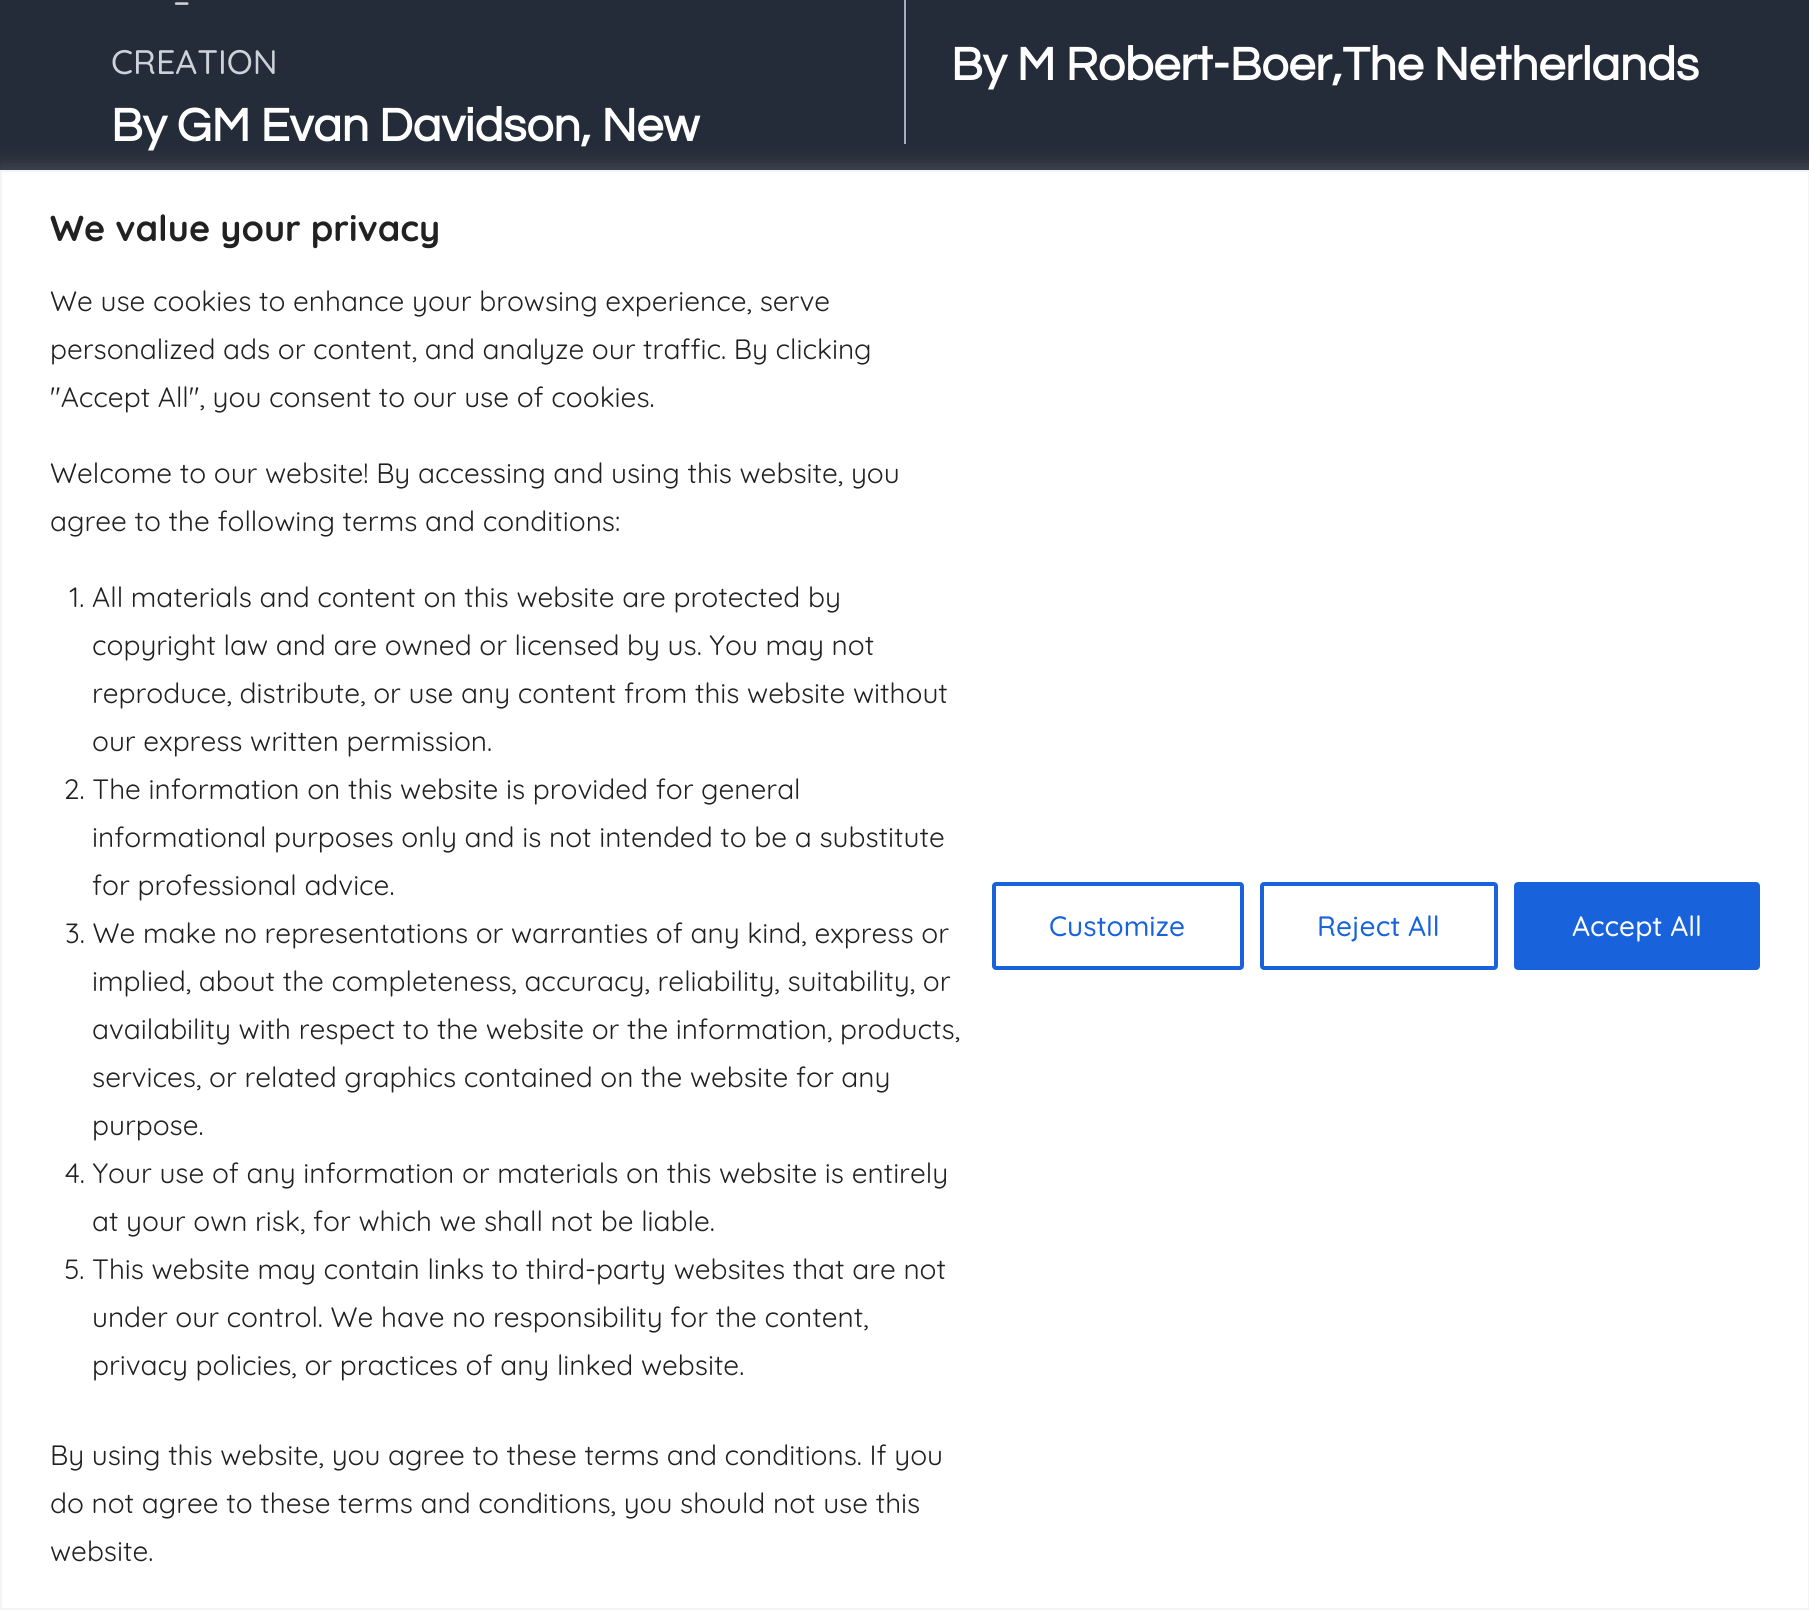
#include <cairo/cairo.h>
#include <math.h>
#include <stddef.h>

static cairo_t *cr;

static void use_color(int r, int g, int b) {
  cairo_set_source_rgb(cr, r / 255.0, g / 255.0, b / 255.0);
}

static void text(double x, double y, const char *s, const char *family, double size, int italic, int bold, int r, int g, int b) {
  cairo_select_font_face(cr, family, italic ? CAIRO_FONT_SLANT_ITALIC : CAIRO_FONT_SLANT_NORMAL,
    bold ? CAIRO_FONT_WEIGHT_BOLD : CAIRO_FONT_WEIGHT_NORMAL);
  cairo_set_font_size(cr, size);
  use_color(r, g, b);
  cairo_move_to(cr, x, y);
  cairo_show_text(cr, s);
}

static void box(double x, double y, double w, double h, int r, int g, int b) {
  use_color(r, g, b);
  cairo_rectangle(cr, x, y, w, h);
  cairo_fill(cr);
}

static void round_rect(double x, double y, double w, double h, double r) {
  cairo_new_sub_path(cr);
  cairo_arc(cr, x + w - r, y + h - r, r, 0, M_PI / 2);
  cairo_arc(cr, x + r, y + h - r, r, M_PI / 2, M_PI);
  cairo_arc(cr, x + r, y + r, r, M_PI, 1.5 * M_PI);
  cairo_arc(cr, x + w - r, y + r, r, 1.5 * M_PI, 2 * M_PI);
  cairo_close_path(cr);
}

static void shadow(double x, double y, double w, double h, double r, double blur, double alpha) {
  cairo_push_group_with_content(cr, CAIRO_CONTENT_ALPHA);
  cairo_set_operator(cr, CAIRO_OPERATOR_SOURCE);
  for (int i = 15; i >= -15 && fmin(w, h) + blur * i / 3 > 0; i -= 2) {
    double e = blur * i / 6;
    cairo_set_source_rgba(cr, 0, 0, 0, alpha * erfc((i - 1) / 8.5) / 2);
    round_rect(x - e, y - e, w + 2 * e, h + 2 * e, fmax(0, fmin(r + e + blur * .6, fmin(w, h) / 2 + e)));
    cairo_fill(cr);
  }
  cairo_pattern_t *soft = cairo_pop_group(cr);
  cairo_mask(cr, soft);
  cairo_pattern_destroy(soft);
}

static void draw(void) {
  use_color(37, 44, 57);
  cairo_paint(cr);
  box(904, 0, 2, 144, 160, 174, 192);
  use_color(172, 171, 171);
  shadow(0, 168, 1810, 1440, 0, 10, 0.3);
  use_color(255, 255, 255);
  cairo_rectangle(cr, 1, 171, 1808, 1438);
  cairo_fill_preserve(cr);
  use_color(244, 244, 244);
  cairo_stroke(cr);
  round_rect(994, 884, 248, 84, 2);
  use_color(24, 99, 220);
  cairo_set_line_width(cr, 4);
  cairo_stroke(cr);
  round_rect(1262, 884, 234, 84, 2);
  cairo_stroke(cr);
  round_rect(1516, 884, 242, 84, 2);
  cairo_fill_preserve(cr);
  cairo_stroke(cr);
  text(173, 13, "–", "Quicksand Medium", 34, 0, 0, 203, 210, 217);
  text(111, 74, "CREATION", "Quicksand Medium", 34, 0, 0, 203, 210, 217);
  text(111, 141, "By GM Evan Davidson, New", "Questrial", 48, 0, 1, 255, 255, 255);
  text(951, 80, "By M Robert-Boer,The Netherlands", "Questrial", 48, 0, 1, 255, 255, 255);
  text(50, 241, "We value your privacy", "Quicksand", 36, 0, 1, 33, 33, 33);
  text(50, 311, "We use cookies to enhance your browsing experience, serve", "Quicksand", 28, 0, 0, 33, 33, 33);
  text(50, 359, "personalized ads or content, and analyze our traffic. By clicking", "Quicksand", 28, 0, 0, 33, 33, 33);
  text(50, 407, "\"Accept All\", you consent to our use of cookies.", "Quicksand", 28, 0, 0, 33, 33, 33);
  text(50, 483, "Welcome to our website! By accessing and using this website, you", "Quicksand", 28, 0, 0, 33, 33, 33);
  text(50, 531, "agree to the following terms and conditions:", "Quicksand", 28, 0, 0, 33, 33, 33);
  text(69, 607, "1. All materials and content on this website are protected by", "Quicksand", 28, 0, 0, 33, 33, 33);
  text(92, 655, "copyright law and are owned or licensed by us. You may not", "Quicksand", 28, 0, 0, 33, 33, 33);
  text(92, 703, "reproduce, distribute, or use any content from this website without", "Quicksand", 28, 0, 0, 33, 33, 33);
  text(92, 751, "our express written permission.", "Quicksand", 28, 0, 0, 33, 33, 33);
  text(64, 799, "2. The information on this website is provided for general", "Quicksand", 28, 0, 0, 33, 33, 33);
  text(92, 847, "informational purposes only and is not intended to be a substitute", "Quicksand", 28, 0, 0, 33, 33, 33);
  text(92, 895, "for professional advice.", "Quicksand", 28, 0, 0, 33, 33, 33);
  text(65, 943, "3. We make no representations or warranties of any kind, express or", "Quicksand", 28, 0, 0, 33, 33, 33);
  text(92, 991, "implied, about the completeness, accuracy, reliability, suitability, or", "Quicksand", 28, 0, 0, 33, 33, 33);
  text(92, 1039, "availability with respect to the website or the information, products,", "Quicksand", 28, 0, 0, 33, 33, 33);
  text(92, 1087, "services, or related graphics contained on the website for any", "Quicksand", 28, 0, 0, 33, 33, 33);
  text(92, 1135, "purpose.", "Quicksand", 28, 0, 0, 33, 33, 33);
  text(65, 1183, "4. Your use of any information or materials on this website is entirely", "Quicksand", 28, 0, 0, 33, 33, 33);
  text(92, 1231, "at your own risk, for which we shall not be liable.", "Quicksand", 28, 0, 0, 33, 33, 33);
  text(64, 1279, "5. This website may contain links to third-party websites that are not", "Quicksand", 28, 0, 0, 33, 33, 33);
  text(92, 1327, "under our control. We have no responsibility for the content,", "Quicksand", 28, 0, 0, 33, 33, 33);
  text(92, 1375, "privacy policies, or practices of any linked website.", "Quicksand", 28, 0, 0, 33, 33, 33);
  text(50, 1465, "By using this website, you agree to these terms and conditions. If you", "Quicksand", 28, 0, 0, 33, 33, 33);
  text(50, 1513, "do not agree to these terms and conditions, you should not use this", "Quicksand", 28, 0, 0, 33, 33, 33);
  text(50, 1561, "website.", "Quicksand", 28, 0, 0, 33, 33, 33);
  text(1049, 936, "Customize", "Quicksand Medium", 28, 0, 0, 24, 99, 220);
  text(1317, 936, "Reject All", "Quicksand Medium", 28, 0, 0, 24, 99, 220);
  text(1572, 936, "Accept All", "Quicksand Medium", 28, 0, 0, 255, 255, 255);
}

int main(void) {
  cairo_surface_t *surface = cairo_image_surface_create(CAIRO_FORMAT_RGB24, 1809, 1610);
  cr = cairo_create(surface);
  cairo_font_options_t *options = cairo_font_options_create();
  cairo_font_options_set_hint_metrics(options, CAIRO_HINT_METRICS_OFF);
  cairo_font_options_set_hint_style(options, CAIRO_HINT_STYLE_NONE);
  cairo_set_font_options(cr, options);
  cairo_set_miter_limit(cr, 4);
  draw();
  cairo_surface_write_to_png(surface, "out.png");
  cairo_font_options_destroy(options);
  cairo_destroy(cr);
  cairo_surface_destroy(surface);
  return 0;
}
